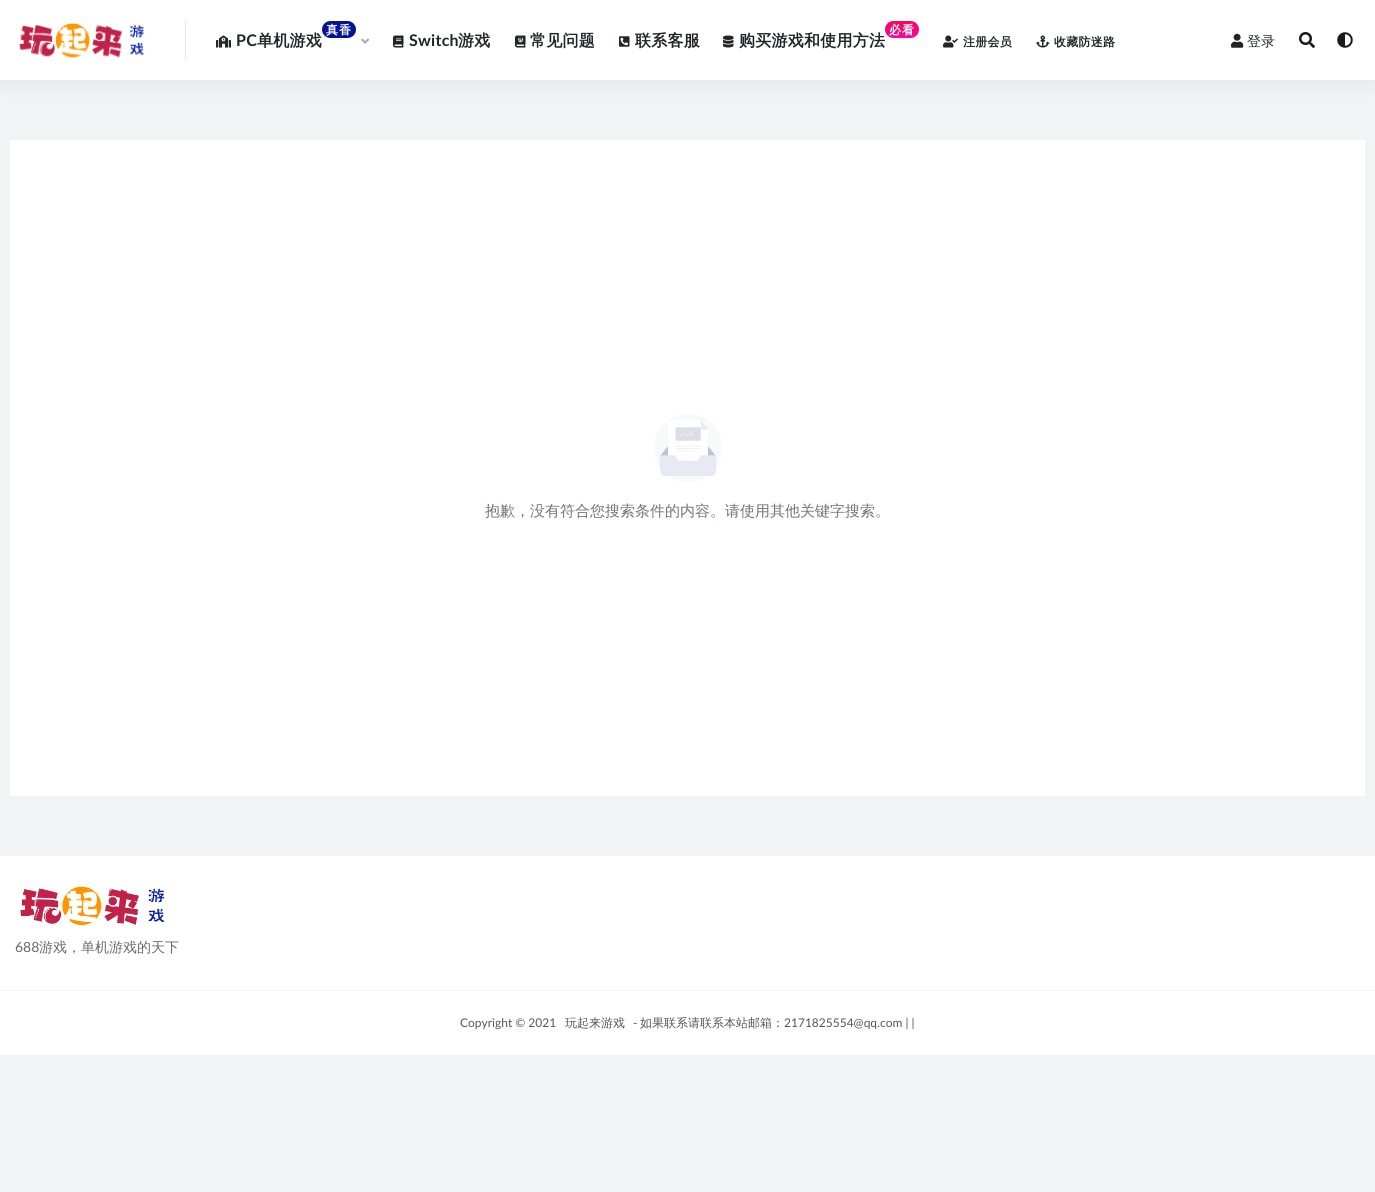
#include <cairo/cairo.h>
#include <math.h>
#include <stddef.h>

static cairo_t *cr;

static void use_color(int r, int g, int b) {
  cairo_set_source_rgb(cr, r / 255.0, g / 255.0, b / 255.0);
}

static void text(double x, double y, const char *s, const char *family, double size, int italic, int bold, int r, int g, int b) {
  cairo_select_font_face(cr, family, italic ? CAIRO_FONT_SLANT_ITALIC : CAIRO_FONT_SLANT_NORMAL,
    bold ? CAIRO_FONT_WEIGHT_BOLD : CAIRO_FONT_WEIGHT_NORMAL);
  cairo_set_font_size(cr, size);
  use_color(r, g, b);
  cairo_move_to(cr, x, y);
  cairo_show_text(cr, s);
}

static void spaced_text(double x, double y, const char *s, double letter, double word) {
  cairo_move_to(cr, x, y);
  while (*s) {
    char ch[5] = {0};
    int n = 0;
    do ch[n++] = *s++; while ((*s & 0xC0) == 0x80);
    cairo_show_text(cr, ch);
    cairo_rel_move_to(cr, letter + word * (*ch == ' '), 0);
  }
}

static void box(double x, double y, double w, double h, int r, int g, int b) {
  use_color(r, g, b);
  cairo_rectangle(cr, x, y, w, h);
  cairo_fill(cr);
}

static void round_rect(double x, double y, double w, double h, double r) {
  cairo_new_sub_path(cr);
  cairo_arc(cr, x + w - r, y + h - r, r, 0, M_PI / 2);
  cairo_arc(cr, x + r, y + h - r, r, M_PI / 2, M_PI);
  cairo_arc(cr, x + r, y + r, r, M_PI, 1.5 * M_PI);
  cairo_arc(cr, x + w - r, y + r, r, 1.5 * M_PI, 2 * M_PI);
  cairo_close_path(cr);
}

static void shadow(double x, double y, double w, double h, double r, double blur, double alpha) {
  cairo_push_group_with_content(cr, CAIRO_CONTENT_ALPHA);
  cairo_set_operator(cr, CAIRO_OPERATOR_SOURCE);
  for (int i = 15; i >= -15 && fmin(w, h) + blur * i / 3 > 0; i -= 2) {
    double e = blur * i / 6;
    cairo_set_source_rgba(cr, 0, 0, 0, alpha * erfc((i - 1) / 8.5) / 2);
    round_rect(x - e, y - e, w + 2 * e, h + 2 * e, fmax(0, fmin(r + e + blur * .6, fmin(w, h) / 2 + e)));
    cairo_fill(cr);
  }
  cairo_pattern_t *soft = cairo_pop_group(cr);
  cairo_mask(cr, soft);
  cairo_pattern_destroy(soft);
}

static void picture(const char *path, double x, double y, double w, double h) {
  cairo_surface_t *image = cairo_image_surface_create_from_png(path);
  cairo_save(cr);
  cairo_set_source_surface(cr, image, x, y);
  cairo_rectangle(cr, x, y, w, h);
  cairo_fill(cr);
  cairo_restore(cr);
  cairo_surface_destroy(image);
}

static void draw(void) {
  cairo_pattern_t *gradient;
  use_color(240, 244, 245);
  cairo_paint(cr);
  use_color(0, 0, 0);
  shadow(0, 0, 1375, 80, 0, 15, 0.07);
  box(0, 0, 1375, 80, 255, 255, 255);
  picture("img_01.png", 19, 23, 126, 35);
  box(185, 20, 1, 40, 230, 230, 230);
  use_color(4, 18, 150);
  round_rect(322, 21, 34, 17, 8.5);
  cairo_fill(cr);
  picture("img_02.png", 216, 35, 15, 13);
  picture("img_03.png", 361, 38, 9, 6);
  picture("img_04.png", 393, 35, 11, 13);
  picture("img_05.png", 515, 35, 11, 13);
  picture("img_06.png", 619, 36, 11, 11);
  gradient = cairo_pattern_create_linear(902, 38, 902, 21);
  cairo_pattern_add_color_stop_rgba(gradient, 0, 0.953, 0.031, 0.627, 1);
  cairo_pattern_add_color_stop_rgba(gradient, 1, 0.984, 0.024, 0.333, 1);
  cairo_set_source(cr, gradient);
  cairo_pattern_destroy(gradient);
  round_rect(885, 21, 34, 17, 8.5);
  cairo_fill(cr);
  picture("img_07.png", 723, 35, 11, 13);
  picture("img_08.png", 943, 35, 15, 13);
  picture("img_09.png", 1036, 35, 14, 13);
  picture("img_10.png", 1231, 33, 13, 15);
  picture("img_11.png", 1299, 32, 16, 16);
  picture("img_12.png", 1337, 32, 16, 16);
  box(10, 140, 1355, 656, 255, 255, 255);
  picture("img_13.png", 654, 414, 68, 68);
  box(0, 856, 1375, 199, 255, 255, 255);
  picture("img_14.png", 20, 886, 145, 40);
  box(0, 990, 1375, 1, 240, 244, 245);
  cairo_select_font_face(cr, "WenQuanYi Zen Hei", CAIRO_FONT_SLANT_NORMAL, CAIRO_FONT_WEIGHT_BOLD);
  cairo_set_font_size(cr, 12);
  use_color(255, 255, 255);
  spaced_text(326, 34, "真香", 1, 0);
  cairo_select_font_face(cr, "Lato", CAIRO_FONT_SLANT_NORMAL, CAIRO_FONT_WEIGHT_BOLD);
  cairo_set_font_size(cr, 16);
  use_color(33, 37, 41);
  spaced_text(236, 46, "PC", 0.25, 0);
  cairo_select_font_face(cr, "WenQuanYi Zen Hei", CAIRO_FONT_SLANT_NORMAL, CAIRO_FONT_WEIGHT_BOLD);
  spaced_text(257, 46, "单机游戏", 0.25, 0);
  cairo_select_font_face(cr, "Lato", CAIRO_FONT_SLANT_NORMAL, CAIRO_FONT_WEIGHT_BOLD);
  spaced_text(409, 46, "Switch", 0.25, 0);
  cairo_select_font_face(cr, "WenQuanYi Zen Hei", CAIRO_FONT_SLANT_NORMAL, CAIRO_FONT_WEIGHT_BOLD);
  spaced_text(458, 46, "游戏", 0.25, 0);
  spaced_text(530, 46, "常见问题", 0.25, 0);
  spaced_text(635, 46, "联系客服", 0.25, 0);
  cairo_set_font_size(cr, 12);
  use_color(255, 255, 255);
  spaced_text(889, 34, "必看", 1, 0);
  cairo_set_font_size(cr, 16);
  use_color(33, 37, 41);
  spaced_text(739, 46, "购买游戏和使用方法", 0.25, 0);
  cairo_set_font_size(cr, 12);
  spaced_text(963, 46, "注册会员", 0.25, 0);
  spaced_text(1054, 46, "收藏防迷路", 0.25, 0);
  text(1247, 46, "登录", "WenQuanYi Zen Hei Medium", 14, 0, 0, 33, 37, 41);
  text(485, 516, "抱歉，没有符合您搜索条件的内容。请使用其他关键字搜索。", "WenQuanYi Zen Hei Medium", 15, 0, 0, 108, 117, 125);
  text(15, 952, "688", "Lato", 14, 0, 0, 103, 107, 111);
  text(39, 952, "游戏，单机游戏的天下", "WenQuanYi Zen Hei Medium", 14, 0, 0, 103, 107, 111);
  text(460, 1027, "Copyright © 2021", "Lato", 12, 0, 0, 85, 85, 85);
  text(565, 1027, "玩起来游戏", "WenQuanYi Zen Hei Medium", 12, 0, 0, 85, 85, 85);
  text(633, 1027, "-", "Lato", 12, 0, 0, 85, 85, 85);
  text(640, 1027, "如果联系请联系本站邮箱：", "WenQuanYi Zen Hei Medium", 12, 0, 0, 85, 85, 85);
  text(784, 1027, "2171825554@qq.com | |", "Lato", 12, 0, 0, 85, 85, 85);
}

int main(void) {
  cairo_surface_t *surface = cairo_image_surface_create(CAIRO_FORMAT_RGB24, 1375, 1192);
  cr = cairo_create(surface);
  cairo_font_options_t *options = cairo_font_options_create();
  cairo_font_options_set_hint_metrics(options, CAIRO_HINT_METRICS_OFF);
  cairo_font_options_set_hint_style(options, CAIRO_HINT_STYLE_NONE);
  cairo_set_font_options(cr, options);
  cairo_set_miter_limit(cr, 4);
  draw();
  cairo_surface_write_to_png(surface, "out.png");
  cairo_font_options_destroy(options);
  cairo_destroy(cr);
  cairo_surface_destroy(surface);
  return 0;
}
